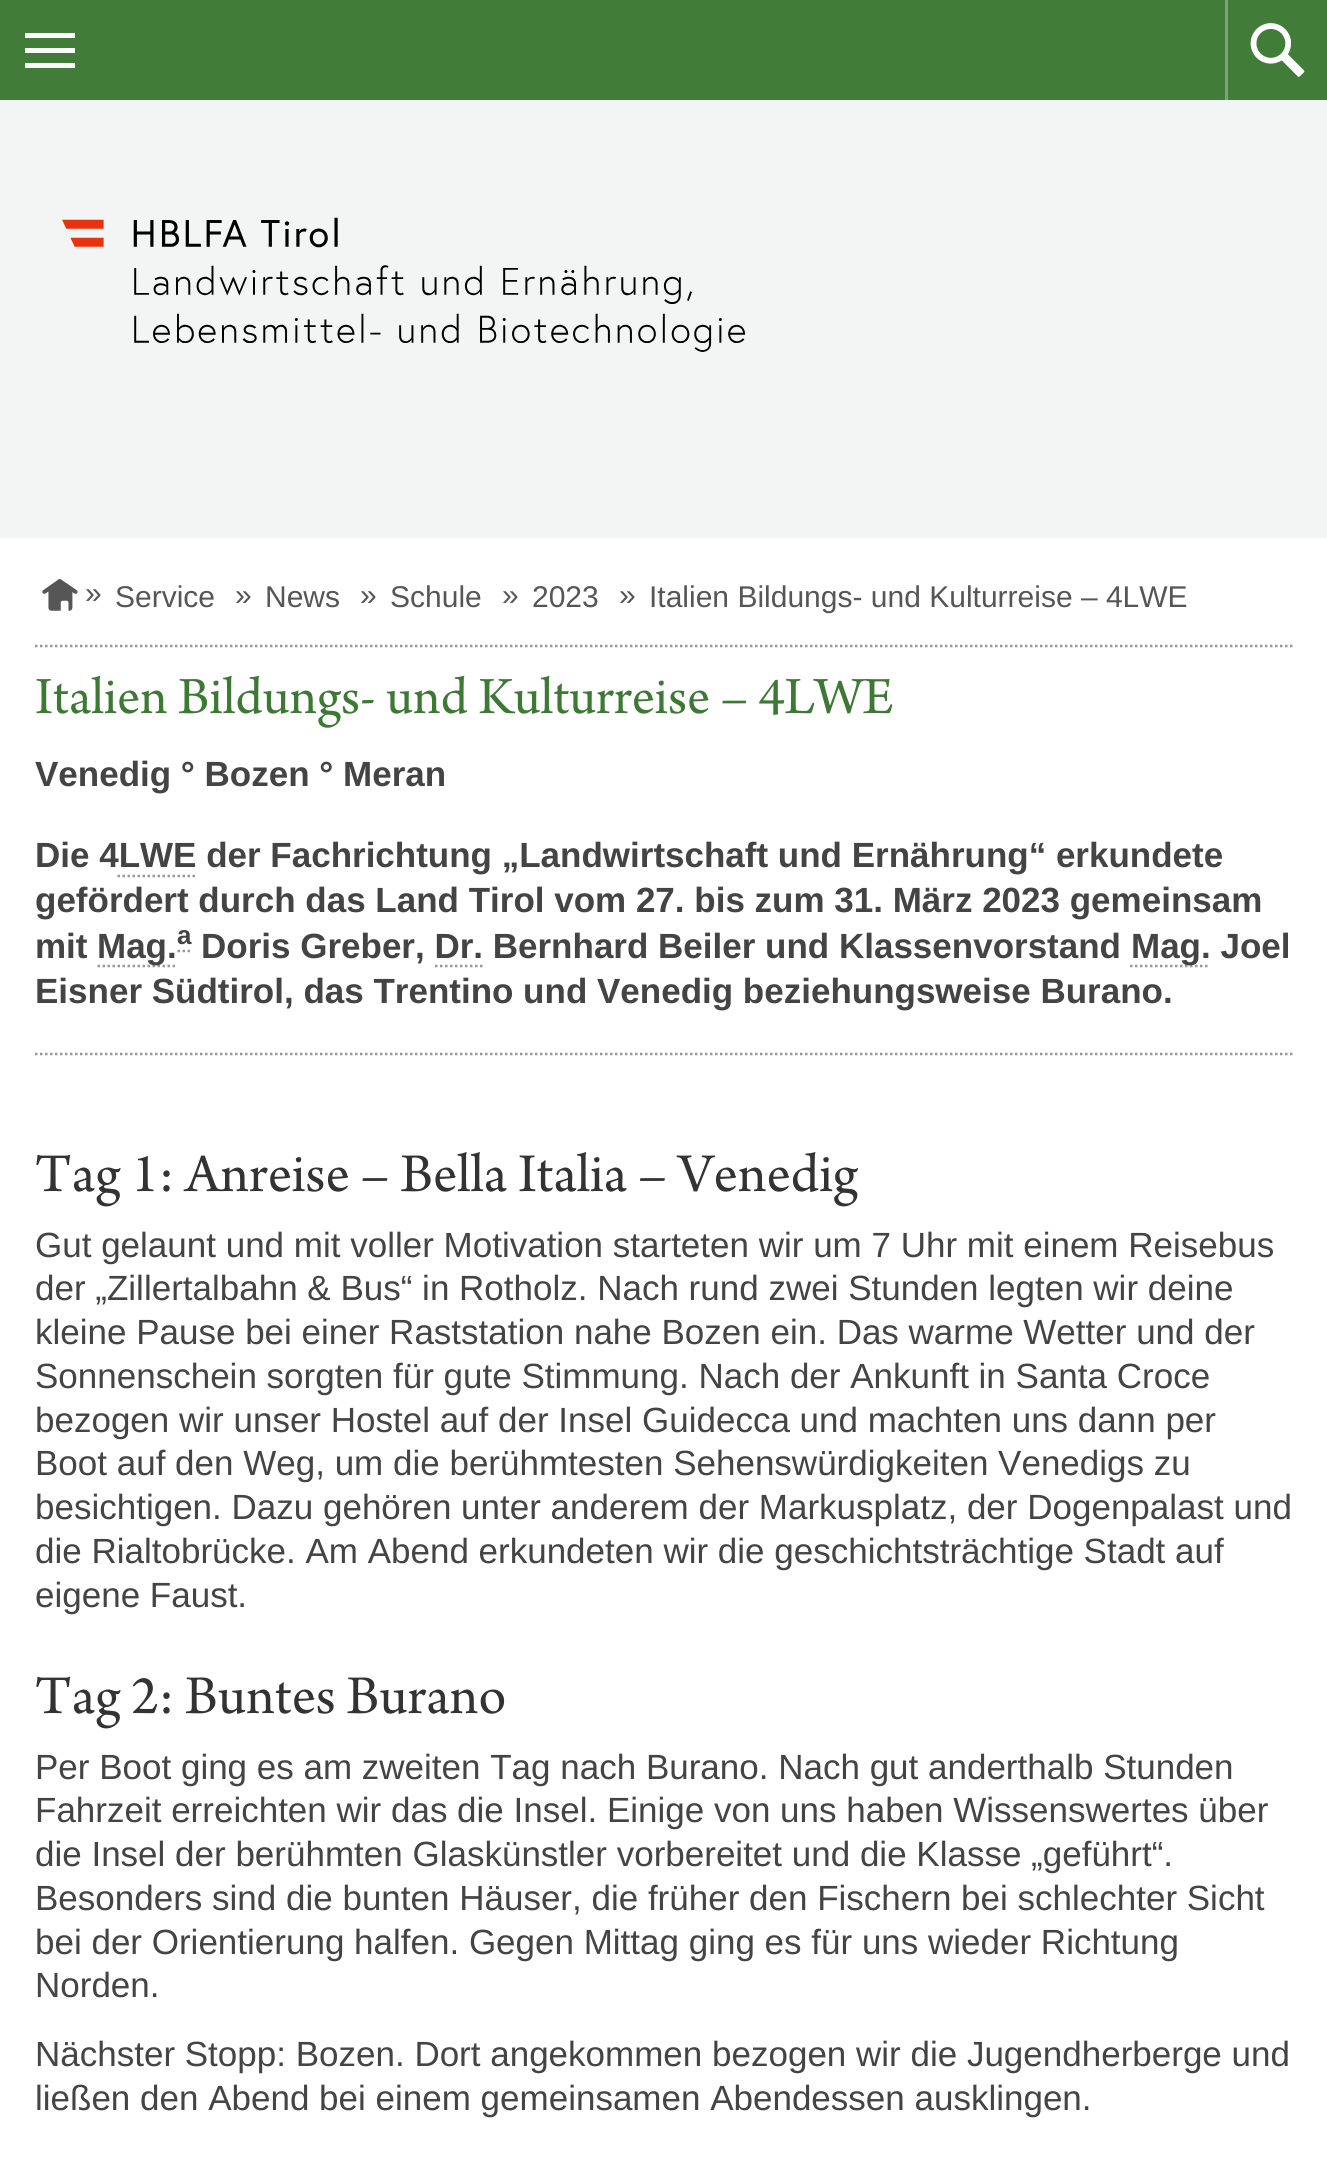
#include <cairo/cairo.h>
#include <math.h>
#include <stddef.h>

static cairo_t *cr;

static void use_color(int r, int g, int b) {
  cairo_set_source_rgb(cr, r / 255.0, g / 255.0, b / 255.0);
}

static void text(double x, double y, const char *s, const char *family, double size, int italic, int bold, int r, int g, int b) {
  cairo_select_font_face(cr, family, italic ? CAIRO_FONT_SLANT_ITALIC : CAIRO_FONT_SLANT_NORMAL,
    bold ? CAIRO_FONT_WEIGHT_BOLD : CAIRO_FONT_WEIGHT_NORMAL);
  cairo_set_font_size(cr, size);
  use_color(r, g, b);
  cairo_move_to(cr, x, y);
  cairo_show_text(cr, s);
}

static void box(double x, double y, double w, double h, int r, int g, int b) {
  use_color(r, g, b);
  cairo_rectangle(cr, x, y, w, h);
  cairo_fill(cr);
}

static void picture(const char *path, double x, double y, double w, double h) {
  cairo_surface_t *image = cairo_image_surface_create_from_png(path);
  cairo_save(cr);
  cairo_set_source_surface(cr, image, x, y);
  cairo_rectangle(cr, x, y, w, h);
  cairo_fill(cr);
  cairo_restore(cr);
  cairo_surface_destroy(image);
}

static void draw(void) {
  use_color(255, 255, 255);
  cairo_paint(cr);
  box(0, 100, 1327, 438, 243, 245, 244);
  box(0, 0, 1327, 100, 65, 125, 57);
  box(25, 48, 50, 5, 255, 255, 255);
  box(25, 33, 50, 5, 255, 255, 255);
  box(25, 63, 50, 5, 255, 255, 255);
  picture("img_01.png", 1250, 23, 55, 54);
  box(1225, 0, 3, 100, 122, 164, 116);
  picture("img_02.png", 62, 217, 684, 135);
  cairo_new_path(cr);
  cairo_move_to(cr, 35, 646);
  cairo_line_to(cr, 1292.5, 646);
  use_color(153, 153, 153);
  cairo_set_line_width(cr, 2.5);
  cairo_set_dash(cr, (double[]){2.5, 2.5}, 2, 0);
  cairo_stroke(cr);
  picture("img_03.png", 42, 579, 36, 32);
  cairo_new_path(cr);
  cairo_move_to(cr, 35, 1054);
  cairo_line_to(cr, 1292.5, 1054);
  cairo_stroke(cr);
  cairo_new_path(cr);
  cairo_move_to(cr, 97.5, 966);
  cairo_line_to(cr, 177.5, 966);
  cairo_stroke(cr);
  cairo_new_path(cr);
  cairo_move_to(cr, 177.5, 951);
  cairo_line_to(cr, 180, 951);
  cairo_move_to(cr, 182.5, 951);
  cairo_line_to(cr, 185, 951);
  cairo_move_to(cr, 187.5, 951);
  cairo_line_to(cr, 190, 951);
  cairo_set_dash(cr, NULL, 0, 0);
  cairo_stroke(cr);
  cairo_new_path(cr);
  cairo_move_to(cr, 1130, 966);
  cairo_line_to(cr, 1210, 966);
  cairo_set_dash(cr, (double[]){2.5, 2.5}, 2, 0);
  cairo_stroke(cr);
  cairo_new_path(cr);
  cairo_move_to(cr, 435, 966);
  cairo_line_to(cr, 482.5, 966);
  cairo_stroke(cr);
  text(85, 603, "»", "Liberation Sans", 30, 0, 0, 86, 86, 86);
  text(115, 607, "Service", "Liberation Sans", 30, 0, 0, 86, 86, 86);
  text(235, 605, "»", "Liberation Sans", 30, 0, 0, 86, 86, 86);
  text(265, 607, "News", "Liberation Sans", 30, 0, 0, 86, 86, 86);
  text(360, 605, "»", "Liberation Sans", 30, 0, 0, 86, 86, 86);
  text(390, 607, "Schule", "Liberation Sans", 30, 0, 0, 86, 86, 86);
  text(502, 605, "»", "Liberation Sans", 30, 0, 0, 86, 86, 86);
  text(532, 607, "2023", "Liberation Sans", 30, 0, 0, 86, 86, 86);
  text(619, 605, "»", "Liberation Sans", 30, 0, 0, 86, 86, 86);
  text(649, 607, "Italien Bildungs- und Kulturreise – 4LWE", "Liberation Sans", 30, 0, 0, 86, 86, 86);
  text(35, 713, "Italien Bildungs- und Kulturreise – 4LWE", "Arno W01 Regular", 55, 0, 0, 61, 121, 53);
  text(35, 786, "Venedig ° Bozen ° Meran", "Liberation Sans", 35, 0, 1, 68, 68, 68);
  text(35, 867, "Die 4LWE der Fachrichtung „Landwirtschaft und Ernährung“ erkundete", "Liberation Sans", 35, 0, 1, 68, 68, 68);
  cairo_new_path(cr);
  cairo_move_to(cr, 117.5, 876);
  cairo_line_to(cr, 197.5, 876);
  use_color(153, 153, 153);
  cairo_stroke(cr);
  text(35, 912, "gefördert durch das Land Tirol vom 27. bis zum 31. März 2023 gemeinsam", "Liberation Sans", 35, 0, 1, 68, 68, 68);
  text(35, 958, "mit", "Liberation Sans", 35, 0, 1, 68, 68, 68);
  text(97, 958, "Mag.", "Liberation Sans", 35, 0, 1, 68, 68, 68);
  text(177, 944, "a", "Liberation Sans", 26, 0, 1, 68, 68, 68);
  text(201, 958, "Doris Greber, Dr. Bernhard Beiler und Klassenvorstand", "Liberation Sans", 35, 0, 1, 68, 68, 68);
  text(1131, 958, "Mag. Joel", "Liberation Sans", 35, 0, 1, 68, 68, 68);
  text(35, 1003, "Eisner Südtirol, das Trentino und Venedig beziehungsweise Burano.", "Liberation Sans", 35, 0, 1, 68, 68, 68);
  text(35, 1191, "Tag 1: Anreise – Bella Italia – Venedig", "Arno W01 Regular", 57.5, 0, 0, 51, 51, 51);
  text(35, 1257, "Gut gelaunt und mit voller Motivation starteten wir um 7 Uhr mit einem Reisebus", "Liberation Sans", 35, 0, 0, 68, 68, 68);
  text(35, 1300, "der „Zillertalbahn & Bus“ in Rotholz. Nach rund zwei Stunden legten wir deine", "Liberation Sans", 35, 0, 0, 68, 68, 68);
  text(35, 1344, "kleine Pause bei einer Raststation nahe Bozen ein. Das warme Wetter und der", "Liberation Sans", 35, 0, 0, 68, 68, 68);
  text(35, 1388, "Sonnenschein sorgten für gute Stimmung. Nach der Ankunft in Santa Croce", "Liberation Sans", 35, 0, 0, 68, 68, 68);
  text(35, 1432, "bezogen wir unser Hostel auf der Insel Guidecca und machten uns dann per", "Liberation Sans", 35, 0, 0, 68, 68, 68);
  text(35, 1475, "Boot auf den Weg, um die berühmtesten Sehenswürdigkeiten Venedigs zu", "Liberation Sans", 35, 0, 0, 68, 68, 68);
  text(35, 1519, "besichtigen. Dazu gehören unter anderem der Markusplatz, der Dogenpalast und", "Liberation Sans", 35, 0, 0, 68, 68, 68);
  text(35, 1563, "die Rialtobrücke. Am Abend erkundeten wir die geschichtsträchtige Stadt auf", "Liberation Sans", 35, 0, 0, 68, 68, 68);
  text(35, 1607, "eigene Faust.", "Liberation Sans", 35, 0, 0, 68, 68, 68);
  text(35, 1713, "Tag 2: Buntes Burano", "Arno W01 Regular", 57.5, 0, 0, 51, 51, 51);
  text(35, 1779, "Per Boot ging es am zweiten Tag nach Burano. Nach gut anderthalb Stunden", "Liberation Sans", 35, 0, 0, 68, 68, 68);
  text(35, 1822, "Fahrzeit erreichten wir das die Insel. Einige von uns haben Wissenswertes über", "Liberation Sans", 35, 0, 0, 68, 68, 68);
  text(35, 1866, "die Insel der berühmten Glaskünstler vorbereitet und die Klasse „geführt“.", "Liberation Sans", 35, 0, 0, 68, 68, 68);
  text(35, 1910, "Besonders sind die bunten Häuser, die früher den Fischern bei schlechter Sicht", "Liberation Sans", 35, 0, 0, 68, 68, 68);
  text(35, 1954, "bei der Orientierung halfen. Gegen Mittag ging es für uns wieder Richtung", "Liberation Sans", 35, 0, 0, 68, 68, 68);
  text(35, 1997, "Norden.", "Liberation Sans", 35, 0, 0, 68, 68, 68);
  text(35, 2066, "Nächster Stopp: Bozen. Dort angekommen bezogen wir die Jugendherberge und", "Liberation Sans", 35, 0, 0, 68, 68, 68);
  text(35, 2110, "ließen den Abend bei einem gemeinsamen Abendessen ausklingen.", "Liberation Sans", 35, 0, 0, 68, 68, 68);
}

int main(void) {
  cairo_surface_t *surface = cairo_image_surface_create(CAIRO_FORMAT_RGB24, 1327, 2183);
  cr = cairo_create(surface);
  cairo_font_options_t *options = cairo_font_options_create();
  cairo_font_options_set_hint_metrics(options, CAIRO_HINT_METRICS_OFF);
  cairo_font_options_set_hint_style(options, CAIRO_HINT_STYLE_NONE);
  cairo_set_font_options(cr, options);
  cairo_set_miter_limit(cr, 4);
  draw();
  cairo_surface_write_to_png(surface, "out.png");
  cairo_font_options_destroy(options);
  cairo_destroy(cr);
  cairo_surface_destroy(surface);
  return 0;
}
